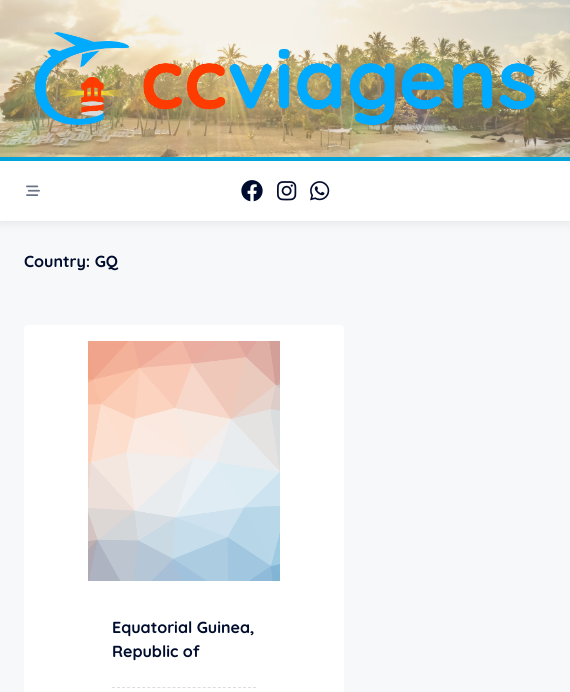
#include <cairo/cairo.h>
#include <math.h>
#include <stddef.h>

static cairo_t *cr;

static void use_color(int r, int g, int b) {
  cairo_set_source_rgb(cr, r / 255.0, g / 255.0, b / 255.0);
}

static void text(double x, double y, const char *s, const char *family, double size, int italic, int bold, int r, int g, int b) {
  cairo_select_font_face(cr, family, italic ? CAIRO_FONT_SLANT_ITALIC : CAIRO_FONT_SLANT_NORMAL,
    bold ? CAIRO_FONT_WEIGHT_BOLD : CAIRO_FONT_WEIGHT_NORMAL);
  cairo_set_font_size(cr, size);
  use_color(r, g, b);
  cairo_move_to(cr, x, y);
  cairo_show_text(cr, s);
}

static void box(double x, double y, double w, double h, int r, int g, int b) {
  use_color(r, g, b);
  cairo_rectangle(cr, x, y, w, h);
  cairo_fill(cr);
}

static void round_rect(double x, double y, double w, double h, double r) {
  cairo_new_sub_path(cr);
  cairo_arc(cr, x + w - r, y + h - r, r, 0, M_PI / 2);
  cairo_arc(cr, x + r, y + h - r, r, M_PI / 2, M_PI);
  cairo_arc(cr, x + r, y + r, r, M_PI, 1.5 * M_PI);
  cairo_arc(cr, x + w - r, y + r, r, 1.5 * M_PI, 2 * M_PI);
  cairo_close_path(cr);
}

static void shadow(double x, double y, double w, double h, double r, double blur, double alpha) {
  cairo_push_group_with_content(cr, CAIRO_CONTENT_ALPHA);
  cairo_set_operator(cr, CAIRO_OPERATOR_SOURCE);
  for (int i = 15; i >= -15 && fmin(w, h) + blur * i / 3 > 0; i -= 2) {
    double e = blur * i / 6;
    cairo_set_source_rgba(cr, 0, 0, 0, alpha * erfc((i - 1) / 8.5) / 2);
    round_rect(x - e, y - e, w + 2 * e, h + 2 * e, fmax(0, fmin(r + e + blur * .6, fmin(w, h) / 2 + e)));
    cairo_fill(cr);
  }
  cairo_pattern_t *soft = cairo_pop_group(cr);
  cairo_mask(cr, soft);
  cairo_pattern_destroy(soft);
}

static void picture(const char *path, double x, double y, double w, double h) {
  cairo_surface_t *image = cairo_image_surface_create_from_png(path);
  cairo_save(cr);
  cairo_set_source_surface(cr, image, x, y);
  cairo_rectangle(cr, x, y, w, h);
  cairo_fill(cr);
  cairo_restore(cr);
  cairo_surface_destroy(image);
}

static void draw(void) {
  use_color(247, 248, 249);
  cairo_paint(cr);
  use_color(44, 62, 80);
  shadow(0, 159, 570, 64, 0, 5, 0.1);
  picture("img_01.png", 0, 0, 570, 157);
  picture("img_02.png", 35, 32, 500, 93);
  box(0, 161, 570, 60, 255, 255, 255);
  box(0, 157, 570, 4, 0, 164, 219);
  picture("img_03.png", 26, 185, 14, 11);
  picture("img_04.png", 241, 180, 22, 22);
  picture("img_05.png", 277, 181, 20, 20);
  picture("img_06.png", 310, 181, 20, 20);
  use_color(255, 255, 255);
  round_rect(24, 325, 320, 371, 4);
  cairo_fill(cr);
  picture("img_07.png", 88, 341, 192, 240);
  cairo_new_path(cr);
  cairo_move_to(cr, 112, 687.5);
  cairo_line_to(cr, 256, 687.5);
  use_color(219, 221, 223);
  cairo_set_line_width(cr, 1);
  cairo_set_dash(cr, (double[]){3, 2.04}, 2, 0);
  cairo_stroke(cr);
  text(24, 267, "Country: GQ", "Quicksand", 16, 0, 1, 0, 12, 45);
  text(112, 633, "Equatorial Guinea,", "Quicksand", 16, 0, 1, 0, 12, 45);
  text(112, 657, "Republic of", "Quicksand", 16, 0, 1, 0, 12, 45);
}

int main(void) {
  cairo_surface_t *surface = cairo_image_surface_create(CAIRO_FORMAT_RGB24, 570, 692);
  cr = cairo_create(surface);
  cairo_font_options_t *options = cairo_font_options_create();
  cairo_font_options_set_hint_metrics(options, CAIRO_HINT_METRICS_OFF);
  cairo_font_options_set_hint_style(options, CAIRO_HINT_STYLE_NONE);
  cairo_set_font_options(cr, options);
  cairo_set_miter_limit(cr, 4);
  draw();
  cairo_surface_write_to_png(surface, "out.png");
  cairo_font_options_destroy(options);
  cairo_destroy(cr);
  cairo_surface_destroy(surface);
  return 0;
}
